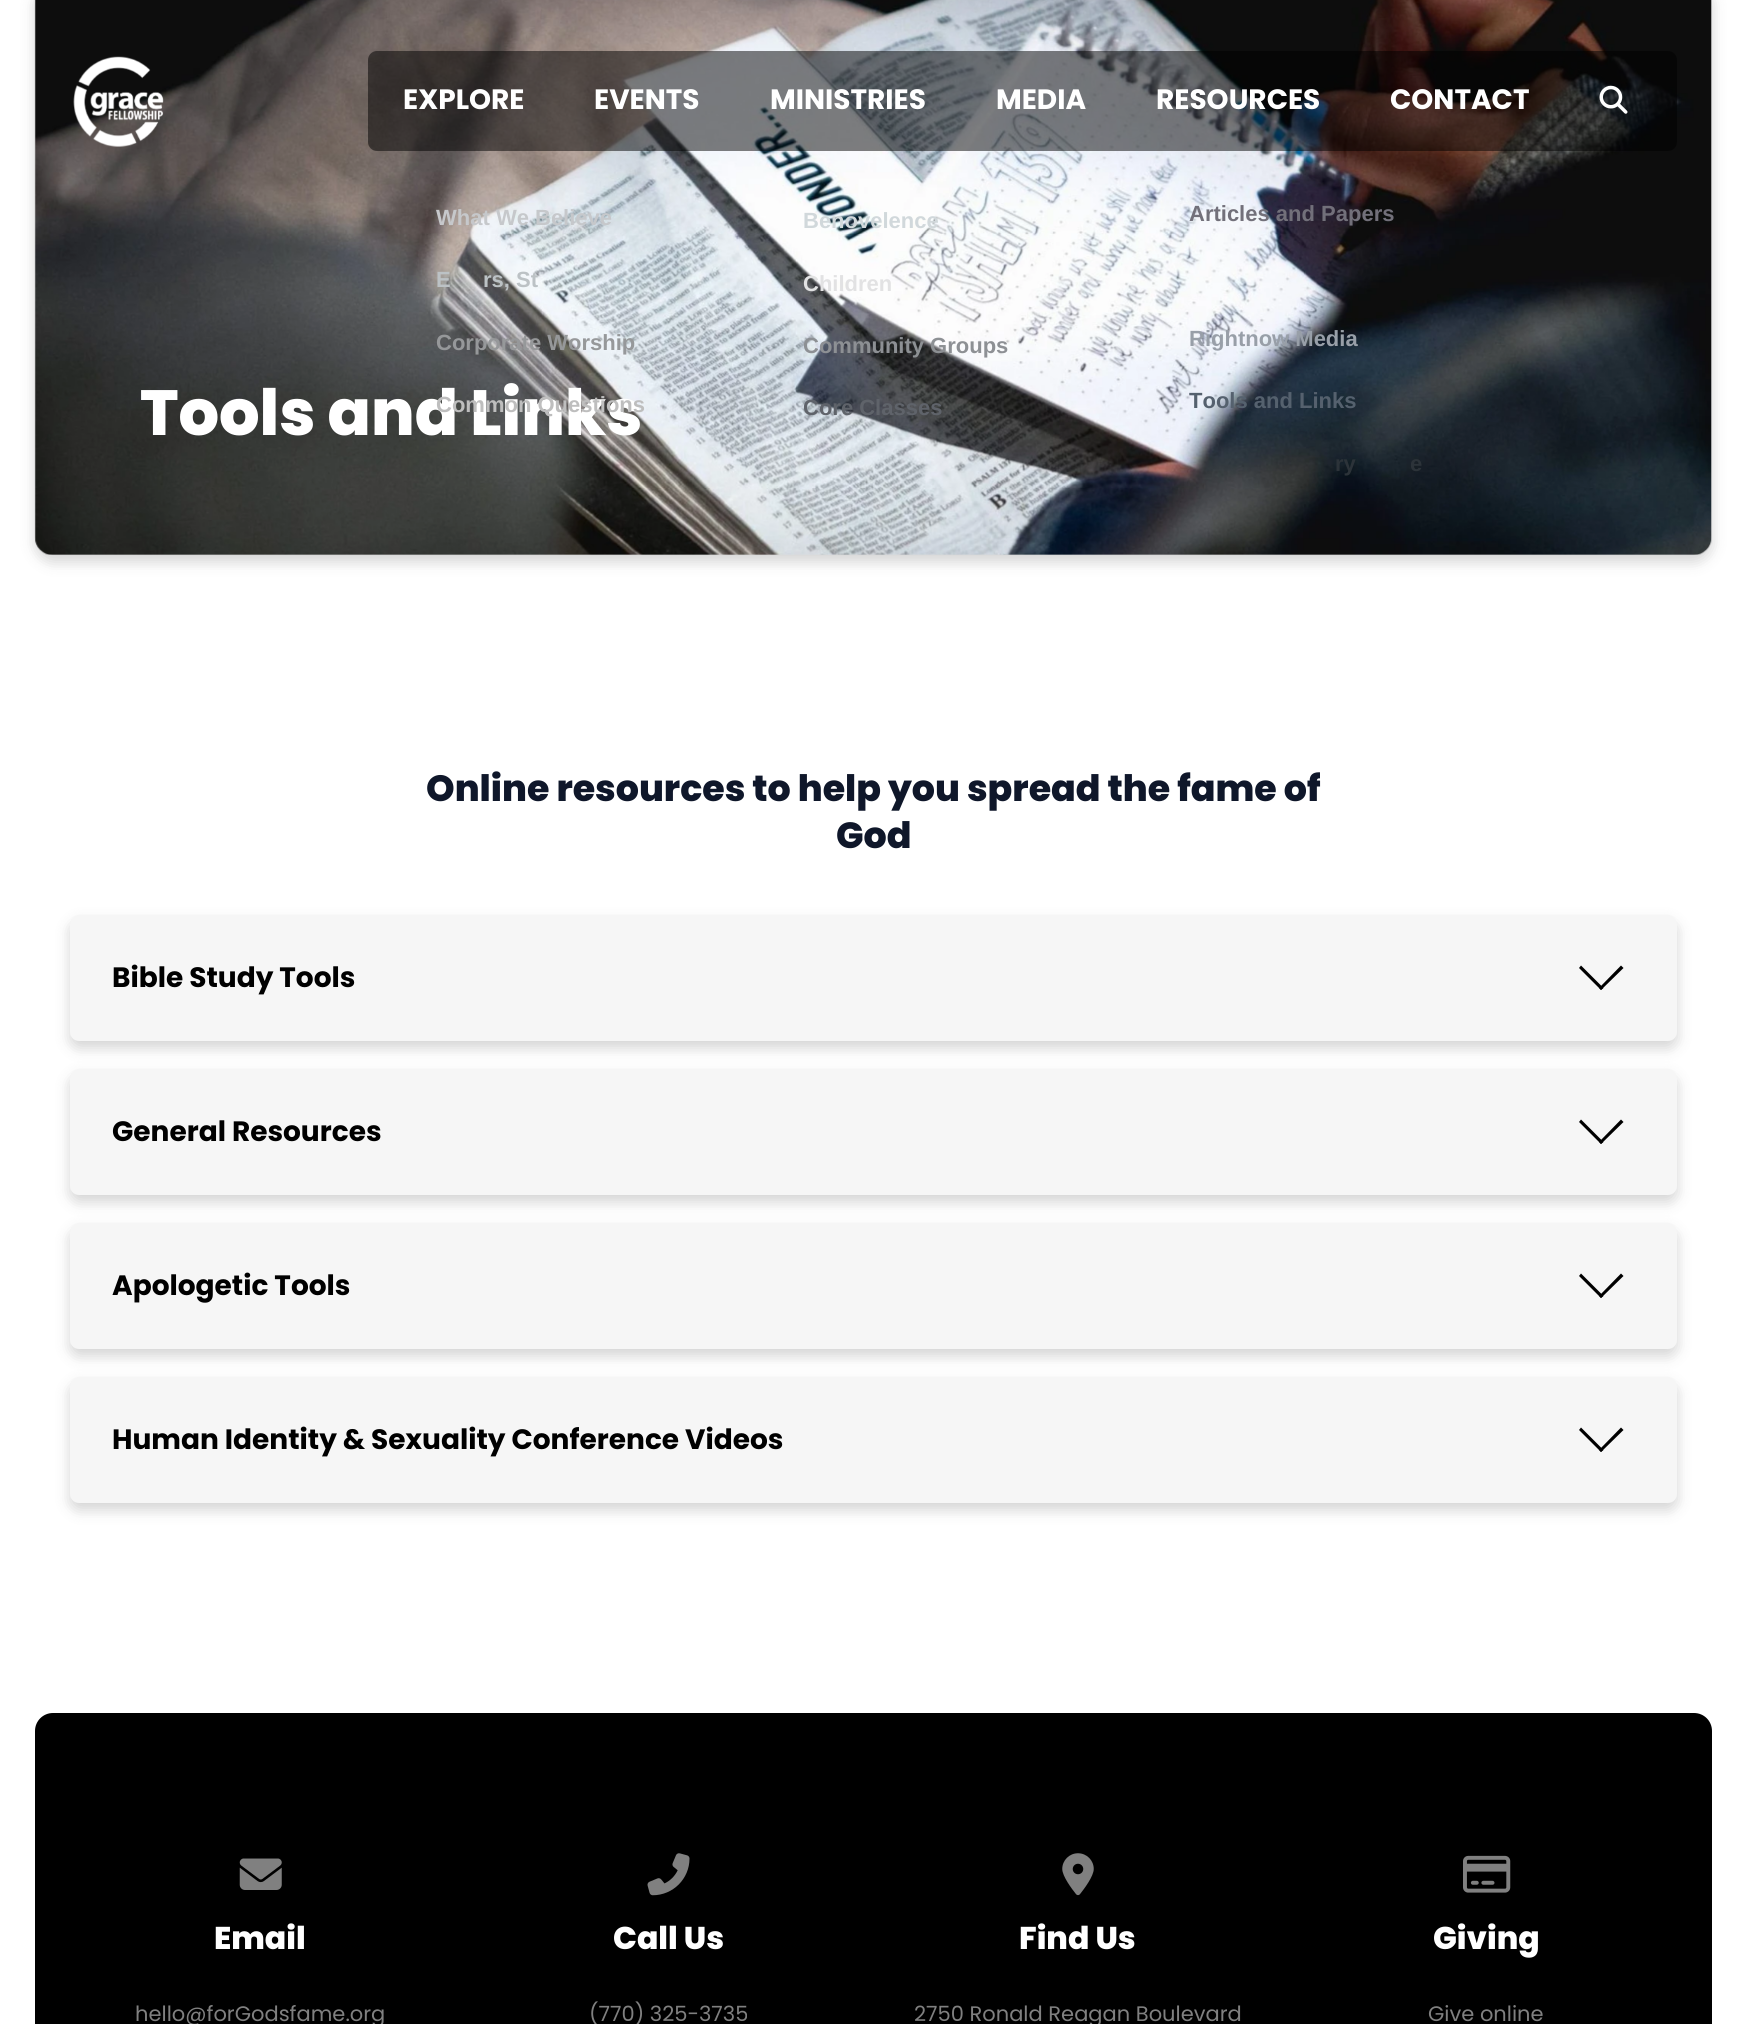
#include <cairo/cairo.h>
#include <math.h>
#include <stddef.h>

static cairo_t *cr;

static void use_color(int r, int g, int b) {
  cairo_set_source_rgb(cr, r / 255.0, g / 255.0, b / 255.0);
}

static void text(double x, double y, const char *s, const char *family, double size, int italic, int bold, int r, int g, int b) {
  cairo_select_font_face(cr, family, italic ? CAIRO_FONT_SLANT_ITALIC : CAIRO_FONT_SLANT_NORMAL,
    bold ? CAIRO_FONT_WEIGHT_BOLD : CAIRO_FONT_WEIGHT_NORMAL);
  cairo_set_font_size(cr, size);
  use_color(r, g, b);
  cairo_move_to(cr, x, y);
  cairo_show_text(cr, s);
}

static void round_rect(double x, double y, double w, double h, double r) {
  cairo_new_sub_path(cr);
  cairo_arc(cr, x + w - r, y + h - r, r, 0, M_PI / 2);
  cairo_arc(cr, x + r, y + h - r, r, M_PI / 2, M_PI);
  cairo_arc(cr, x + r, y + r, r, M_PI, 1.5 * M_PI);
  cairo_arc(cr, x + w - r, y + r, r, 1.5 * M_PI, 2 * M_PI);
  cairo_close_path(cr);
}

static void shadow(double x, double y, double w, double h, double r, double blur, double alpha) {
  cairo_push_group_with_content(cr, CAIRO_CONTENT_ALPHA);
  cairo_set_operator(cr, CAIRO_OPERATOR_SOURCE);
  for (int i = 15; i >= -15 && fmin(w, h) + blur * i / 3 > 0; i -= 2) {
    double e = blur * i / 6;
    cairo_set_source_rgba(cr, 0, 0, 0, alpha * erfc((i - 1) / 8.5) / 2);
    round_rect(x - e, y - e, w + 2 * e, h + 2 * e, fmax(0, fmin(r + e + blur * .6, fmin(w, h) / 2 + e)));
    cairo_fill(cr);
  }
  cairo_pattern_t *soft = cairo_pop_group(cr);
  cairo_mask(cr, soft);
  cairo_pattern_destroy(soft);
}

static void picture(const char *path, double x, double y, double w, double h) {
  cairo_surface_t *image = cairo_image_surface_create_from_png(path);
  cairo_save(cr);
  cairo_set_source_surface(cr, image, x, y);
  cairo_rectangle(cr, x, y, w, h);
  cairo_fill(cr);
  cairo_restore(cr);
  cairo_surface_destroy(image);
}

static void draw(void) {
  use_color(255, 255, 255);
  cairo_paint(cr);
  use_color(0, 0, 0);
  shadow(35, -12, 1677, 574, 18, 7, 0.17);
  picture("img_03.png", 34, 0, 1678, 555);
  picture("img_01.png", 73, 56, 91, 91);
  cairo_set_source_rgba(cr, 0, 0, 0, 0.5);
  round_rect(368, 51, 1309, 100, 9);
  cairo_fill(cr);
  picture("img_02.png", 1599, 85, 29, 29);
  use_color(0, 0, 0);
  shadow(70, 922, 1607, 126, 9, 7, 0.17);
  use_color(246, 246, 246);
  round_rect(70, 915, 1607, 126, 9);
  cairo_fill(cr);
  use_color(0, 0, 0);
  cairo_new_path(cr);
  cairo_move_to(cr, 1599, 988);
  cairo_line_to(cr, 1621, 965.5);
  cairo_line_to(cr, 1623.5, 968);
  cairo_line_to(cr, 1601, 990);
  cairo_close_path(cr);
  cairo_fill(cr);
  cairo_new_path(cr);
  cairo_move_to(cr, 1581, 965.5);
  cairo_line_to(cr, 1603.5, 988);
  cairo_line_to(cr, 1601, 990);
  cairo_line_to(cr, 1579, 968);
  cairo_close_path(cr);
  cairo_fill(cr);
  use_color(0, 0, 0);
  shadow(70, 1076, 1607, 126, 9, 7, 0.17);
  use_color(246, 246, 246);
  round_rect(70, 1069, 1607, 126, 9);
  cairo_fill(cr);
  use_color(0, 0, 0);
  cairo_new_path(cr);
  cairo_move_to(cr, 1599, 1142);
  cairo_line_to(cr, 1621, 1119.5);
  cairo_line_to(cr, 1623.5, 1122);
  cairo_line_to(cr, 1601, 1144);
  cairo_close_path(cr);
  cairo_fill(cr);
  cairo_new_path(cr);
  cairo_move_to(cr, 1581, 1119.5);
  cairo_line_to(cr, 1603.5, 1142);
  cairo_line_to(cr, 1601, 1144);
  cairo_line_to(cr, 1579, 1122);
  cairo_close_path(cr);
  cairo_fill(cr);
  use_color(0, 0, 0);
  shadow(70, 1230, 1607, 126, 9, 7, 0.17);
  use_color(246, 246, 246);
  round_rect(70, 1223, 1607, 126, 9);
  cairo_fill(cr);
  use_color(0, 0, 0);
  cairo_new_path(cr);
  cairo_move_to(cr, 1599, 1296);
  cairo_line_to(cr, 1621, 1273.5);
  cairo_line_to(cr, 1623.5, 1276);
  cairo_line_to(cr, 1601, 1298);
  cairo_close_path(cr);
  cairo_fill(cr);
  cairo_new_path(cr);
  cairo_move_to(cr, 1581, 1273.5);
  cairo_line_to(cr, 1603.5, 1296);
  cairo_line_to(cr, 1601, 1298);
  cairo_line_to(cr, 1579, 1276);
  cairo_close_path(cr);
  cairo_fill(cr);
  use_color(0, 0, 0);
  shadow(70, 1384, 1607, 126, 9, 7, 0.17);
  use_color(246, 246, 246);
  round_rect(70, 1377, 1607, 126, 9);
  cairo_fill(cr);
  use_color(0, 0, 0);
  cairo_new_path(cr);
  cairo_move_to(cr, 1599, 1450);
  cairo_line_to(cr, 1621, 1427.5);
  cairo_line_to(cr, 1623.5, 1430);
  cairo_line_to(cr, 1601, 1452);
  cairo_close_path(cr);
  cairo_fill(cr);
  cairo_new_path(cr);
  cairo_move_to(cr, 1581, 1427.5);
  cairo_line_to(cr, 1603.5, 1450);
  cairo_line_to(cr, 1601, 1452);
  cairo_line_to(cr, 1579, 1430);
  cairo_close_path(cr);
  cairo_fill(cr);
  cairo_new_path(cr);
  cairo_move_to(cr, 53, 1713);
  cairo_line_to(cr, 1694, 1713);
  cairo_curve_to(cr, 1704, 1713, 1712, 1721, 1712, 1731);
  cairo_line_to(cr, 1712, 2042);
  cairo_line_to(cr, 35, 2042);
  cairo_line_to(cr, 35, 1731);
  cairo_curve_to(cr, 35, 1721, 43, 1713, 53, 1713);
  cairo_close_path(cr);
  cairo_fill(cr);
  picture("img_04.png", 239, 1858, 43, 32);
  picture("img_05.png", 647, 1853, 43, 43);
  picture("img_06.png", 1062, 1853, 32, 43);
  picture("img_07.png", 1463, 1855, 48, 38);
  text(403, 109, "EXPLORE", "Poppins", 28, 0, 1, 255, 255, 255);
  text(436, 225, "What We Believe", "Liberation Sans", 22, 0, 1, 198, 200, 203);
  text(436, 287, "E", "Liberation Sans", 22, 0, 1, 188, 194, 197);
  text(483, 287, "rs, St", "Liberation Sans", 22, 0, 1, 188, 194, 197);
  text(436, 350, "Corporate Worship", "Liberation Sans", 22, 0, 1, 150, 152, 154);
  text(594, 109, "EVENTS", "Poppins", 28, 0, 1, 255, 255, 255);
  text(770, 109, "MINISTRIES", "Poppins", 28, 0, 1, 255, 255, 255);
  text(803, 228, "Benovelence", "Liberation Sans", 22, 0, 1, 209, 216, 219);
  text(803, 291, "Children", "Liberation Sans", 22, 0, 1, 226, 226, 227);
  text(803, 353, "Community Groups", "Liberation Sans", 22, 0, 1, 141, 144, 148);
  text(803, 415, "Core Classes", "Liberation Sans", 22, 0, 1, 95, 99, 106);
  text(996, 109, "MEDIA", "Poppins", 28, 0, 1, 255, 255, 255);
  text(1156, 109, "RESOURCES", "Poppins", 28, 0, 1, 255, 255, 255);
  text(1189, 221, "Articles and Papers", "Liberation Sans", 22, 0, 1, 114, 112, 122);
  text(1189, 346, "Rightnow Media", "Liberation Sans", 22, 0, 1, 152, 159, 168);
  text(1189, 408, "Tools and Links", "Liberation Sans", 22, 0, 1, 85, 97, 110);
  text(1335, 471, "ry", "Liberation Sans", 22, 0, 1, 44, 51, 57);
  text(1410, 471, "e", "Liberation Sans", 22, 0, 1, 44, 51, 57);
  text(1390, 109, "CONTACT", "Poppins", 28, 0, 1, 255, 255, 255);
  text(140, 435, "Tools and Links", "Poppins ExtraBold", 63.75, 0, 0, 255, 255, 255);
  text(436, 412, "Common Questions", "Liberation Sans", 22, 0, 1, 190, 190, 190);
  text(426, 801, "Online resources to help you spread the fame of", "Poppins ExtraBold", 36.4, 0, 0, 15, 23, 42);
  text(836, 848, "God", "Poppins ExtraBold", 36.4, 0, 0, 15, 23, 42);
  text(112, 987, "Bible Study Tools", "Poppins", 28, 0, 1, 0, 0, 0);
  text(112, 1141, "General Resources", "Poppins", 28, 0, 1, 0, 0, 0);
  text(112, 1295, "Apologetic Tools", "Poppins", 28, 0, 1, 0, 0, 0);
  text(112, 1449, "Human Identity & Sexuality Conference Videos", "Poppins", 28, 0, 1, 0, 0, 0);
  text(214, 1949, "Email", "Poppins ExtraBold", 31.5, 0, 0, 255, 255, 255);
  text(135, 2021, "hello@forGodsfame.org", "Poppins", 21, 0, 0, 128, 128, 128);
  text(613, 1949, "Call Us", "Poppins ExtraBold", 31.5, 0, 0, 255, 255, 255);
  text(589, 2021, "(770) 325-3735", "Poppins", 21, 0, 0, 128, 128, 128);
  text(1019, 1949, "Find Us", "Poppins ExtraBold", 31.5, 0, 0, 255, 255, 255);
  text(914, 2021, "2750 Ronald Reagan Boulevard", "Poppins", 21, 0, 0, 128, 128, 128);
  text(1433, 1949, "Giving", "Poppins ExtraBold", 31.5, 0, 0, 255, 255, 255);
  text(1428, 2021, "Give online", "Poppins", 21, 0, 0, 128, 128, 128);
}

int main(void) {
  cairo_surface_t *surface = cairo_image_surface_create(CAIRO_FORMAT_RGB24, 1746, 2024);
  cr = cairo_create(surface);
  cairo_font_options_t *options = cairo_font_options_create();
  cairo_font_options_set_hint_metrics(options, CAIRO_HINT_METRICS_OFF);
  cairo_font_options_set_hint_style(options, CAIRO_HINT_STYLE_NONE);
  cairo_set_font_options(cr, options);
  cairo_set_miter_limit(cr, 4);
  draw();
  cairo_surface_write_to_png(surface, "out.png");
  cairo_font_options_destroy(options);
  cairo_destroy(cr);
  cairo_surface_destroy(surface);
  return 0;
}
